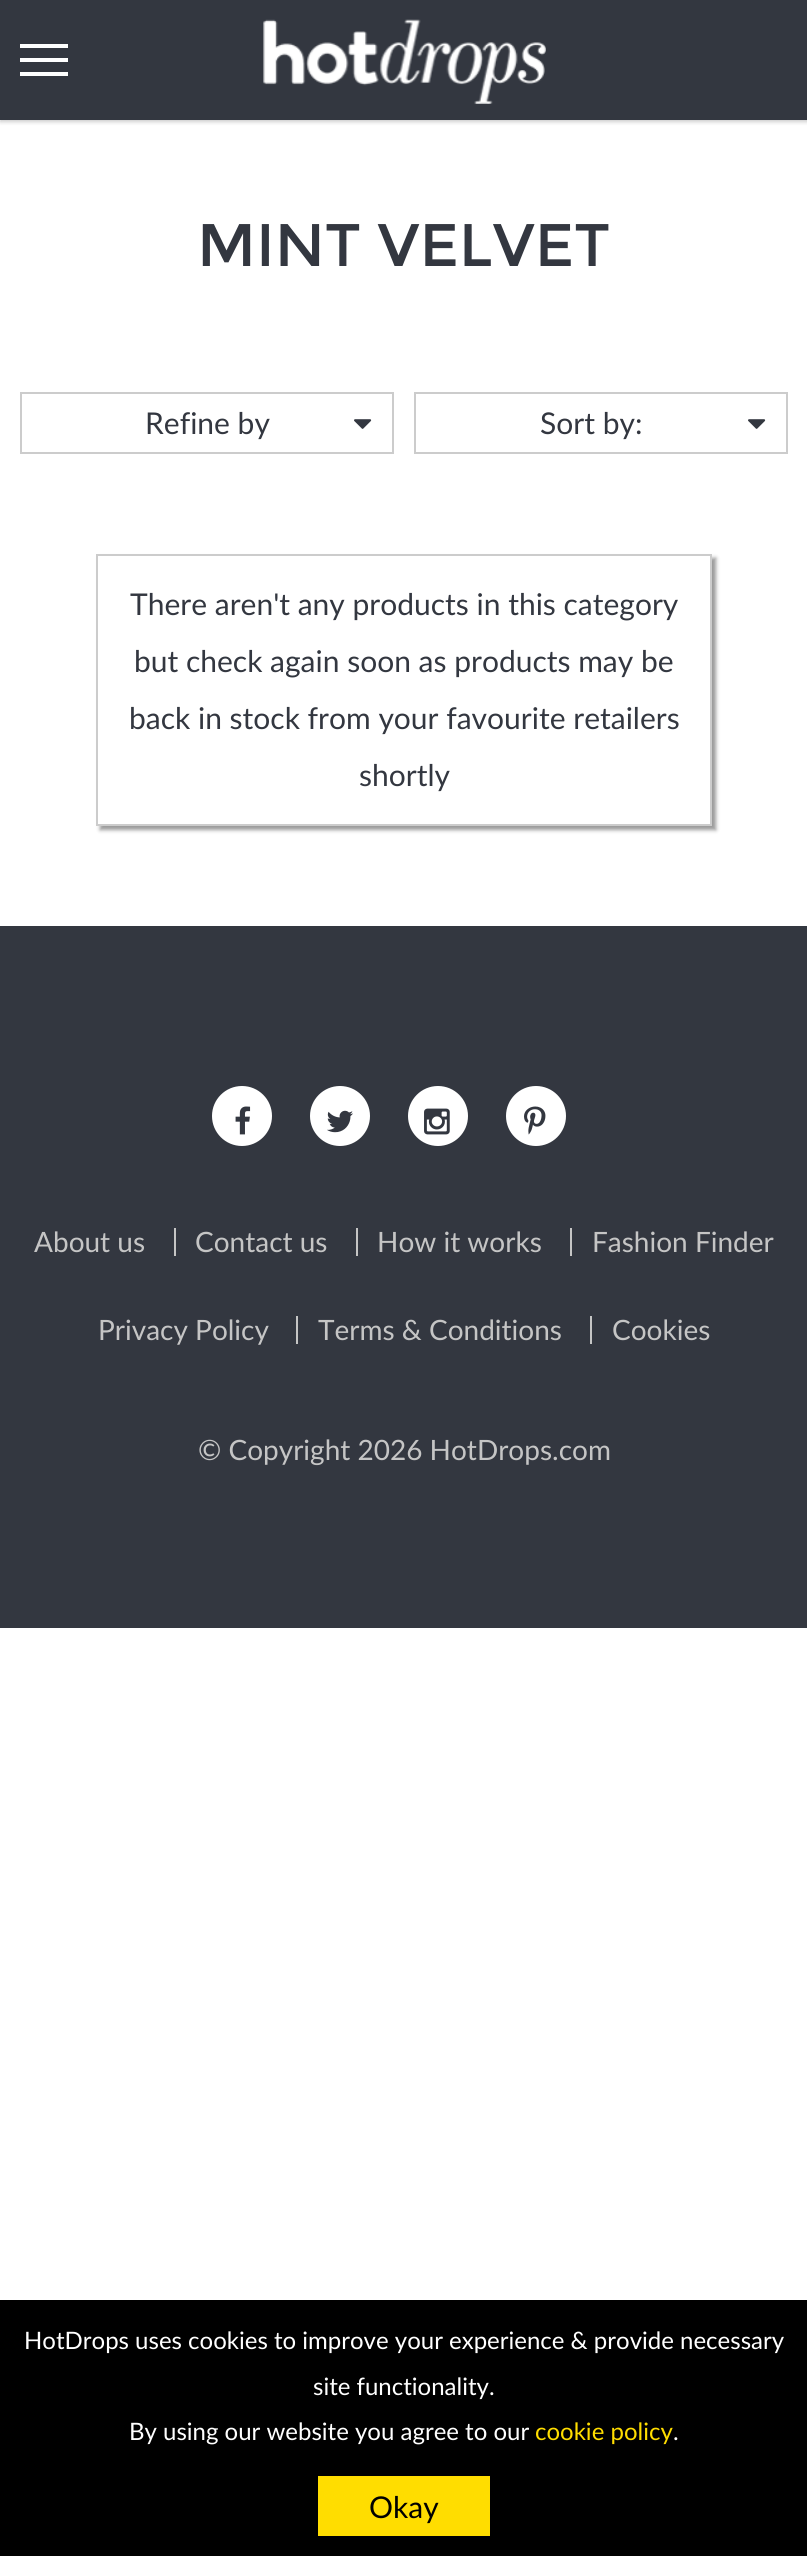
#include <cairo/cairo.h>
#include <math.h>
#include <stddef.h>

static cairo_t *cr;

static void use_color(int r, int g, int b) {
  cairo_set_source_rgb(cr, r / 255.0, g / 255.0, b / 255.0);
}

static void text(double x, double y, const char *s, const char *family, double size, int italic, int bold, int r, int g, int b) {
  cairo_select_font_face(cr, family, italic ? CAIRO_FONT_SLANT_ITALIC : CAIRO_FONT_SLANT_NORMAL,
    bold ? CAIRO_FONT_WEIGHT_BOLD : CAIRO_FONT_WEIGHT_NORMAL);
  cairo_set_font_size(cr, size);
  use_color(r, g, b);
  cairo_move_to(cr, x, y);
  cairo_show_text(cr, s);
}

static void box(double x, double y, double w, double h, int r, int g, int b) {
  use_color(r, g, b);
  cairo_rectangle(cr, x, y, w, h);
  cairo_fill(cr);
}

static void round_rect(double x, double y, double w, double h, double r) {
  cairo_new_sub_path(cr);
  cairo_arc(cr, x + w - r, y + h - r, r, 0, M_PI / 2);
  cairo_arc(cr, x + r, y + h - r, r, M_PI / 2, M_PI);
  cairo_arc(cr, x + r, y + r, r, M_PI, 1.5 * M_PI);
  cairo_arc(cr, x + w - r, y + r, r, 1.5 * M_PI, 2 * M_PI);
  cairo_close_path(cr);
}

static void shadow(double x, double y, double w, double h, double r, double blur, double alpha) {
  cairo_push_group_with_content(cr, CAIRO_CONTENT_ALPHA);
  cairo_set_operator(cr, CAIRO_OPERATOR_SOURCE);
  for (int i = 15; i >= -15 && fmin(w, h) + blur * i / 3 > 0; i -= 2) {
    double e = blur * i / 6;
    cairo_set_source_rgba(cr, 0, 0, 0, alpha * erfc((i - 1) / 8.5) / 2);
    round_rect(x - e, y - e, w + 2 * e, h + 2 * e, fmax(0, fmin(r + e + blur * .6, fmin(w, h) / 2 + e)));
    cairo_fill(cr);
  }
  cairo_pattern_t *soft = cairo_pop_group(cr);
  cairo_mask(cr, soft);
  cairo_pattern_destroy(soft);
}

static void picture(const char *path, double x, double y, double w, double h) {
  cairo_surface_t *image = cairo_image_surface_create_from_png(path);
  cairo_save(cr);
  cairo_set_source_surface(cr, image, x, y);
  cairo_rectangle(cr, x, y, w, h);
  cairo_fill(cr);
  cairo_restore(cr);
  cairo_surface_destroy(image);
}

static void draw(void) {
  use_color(255, 255, 255);
  cairo_paint(cr);
  use_color(0, 0, 0);
  shadow(0, 2, 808, 120, 0, 2, 0.2);
  box(0, 0, 807, 120, 51, 55, 64);
  box(20, 44, 48, 4, 255, 255, 255);
  box(20, 58, 48, 4, 255, 255, 255);
  box(20, 72, 48, 4, 255, 255, 255);
  picture("img_01.png", 263, 19, 283, 85);
  cairo_rectangle(cr, 21, 393, 372, 60);
  use_color(204, 204, 204);
  cairo_stroke(cr);
  picture("img_02.png", 354, 419, 18, 10);
  cairo_rectangle(cr, 415, 393, 372, 60);
  cairo_stroke(cr);
  picture("img_02.png", 748, 419, 18, 10);
  cairo_save(cr);
  cairo_set_fill_rule(cr, CAIRO_FILL_RULE_EVEN_ODD);
  cairo_new_path(cr);
  cairo_move_to(cr, 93, 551);
  cairo_line_to(cr, 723, 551);
  cairo_line_to(cr, 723, 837);
  cairo_line_to(cr, 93, 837);
  cairo_close_path(cr);
  cairo_move_to(cr, 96, 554);
  cairo_line_to(cr, 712, 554);
  cairo_line_to(cr, 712, 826);
  cairo_line_to(cr, 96, 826);
  cairo_close_path(cr);
  cairo_clip(cr);
  use_color(153, 153, 153);
  shadow(100, 558, 616, 272, 0, 2, 1);
  cairo_restore(cr);
  cairo_rectangle(cr, 97, 555, 614, 270);
  cairo_stroke(cr);
  box(0, 926, 807, 702, 51, 55, 64);
  use_color(255, 255, 255);
  cairo_arc(cr, 242, 1116, 28, 0, 2 * M_PI);
  cairo_fill_preserve(cr);
  cairo_set_line_width(cr, 4);
  cairo_stroke(cr);
  picture("img_03.png", 235, 1106, 16, 29);
  cairo_arc(cr, 340, 1116, 28, 0, 2 * M_PI);
  cairo_fill_preserve(cr);
  cairo_stroke(cr);
  picture("img_04.png", 327, 1110, 26, 23);
  cairo_arc(cr, 438, 1116, 28, 0, 2 * M_PI);
  cairo_fill_preserve(cr);
  cairo_stroke(cr);
  picture("img_05.png", 424, 1108, 26, 27);
  cairo_arc(cr, 536, 1116, 28, 0, 2 * M_PI);
  cairo_fill_preserve(cr);
  cairo_stroke(cr);
  picture("img_06.png", 524, 1106, 22, 29);
  box(174, 1228, 2, 28, 197, 197, 197);
  box(356, 1228, 2, 28, 197, 197, 197);
  box(570, 1228, 2, 28, 197, 197, 197);
  box(296, 1316, 2, 28, 197, 197, 197);
  box(590, 1316, 2, 28, 197, 197, 197);
  box(0, 2300, 807, 256, 0, 0, 0);
  box(318, 2476, 172, 60, 255, 221, 0);
  text(197, 266, "MINT VELVET", "Montserrat", 60, 0, 0, 51, 55, 64);
  text(145, 434, "Refine by", "Lato", 30, 0, 0, 51, 55, 64);
  text(540, 434, "Sort by:", "Lato", 30, 0, 0, 51, 55, 64);
  text(130, 615, "There aren't any products in this category", "Lato", 30, 0, 0, 51, 55, 64);
  text(134, 672, "but check again soon as products may be", "Lato", 30, 0, 0, 51, 55, 64);
  text(129, 729, "back in stock from your favourite retailers", "Lato", 30, 0, 0, 51, 55, 64);
  text(359, 786, "shortly", "Lato", 30, 0, 0, 51, 55, 64);
  text(34, 1252, "About us", "Lato", 28, 0, 0, 197, 197, 197);
  text(195, 1252, "Contact us", "Lato", 28, 0, 0, 197, 197, 197);
  text(377, 1252, "How it works", "Lato", 28, 0, 0, 197, 197, 197);
  text(592, 1252, "Fashion Finder", "Lato", 28, 0, 0, 197, 197, 197);
  text(98, 1340, "Privacy Policy", "Lato", 28, 0, 0, 197, 197, 197);
  text(318, 1340, "Terms & Conditions", "Lato", 28, 0, 0, 197, 197, 197);
  text(612, 1340, "Cookies", "Lato", 28, 0, 0, 197, 197, 197);
  text(198, 1460, "© Copyright 2026 HotDrops.com", "Lato", 28, 0, 0, 197, 197, 197);
  text(24, 2349, "HotDrops uses cookies to improve your experience & provide necessary", "Lato", 24, 0, 0, 255, 255, 255);
  text(313, 2395, "site functionality.", "Lato", 24, 0, 0, 255, 255, 255);
  text(129, 2440, "By using our website you agree to our", "Lato", 24, 0, 0, 255, 255, 255);
  text(535, 2440, "cookie policy", "Lato", 24, 0, 0, 255, 221, 0);
  text(673, 2440, ".", "Lato", 24, 0, 0, 255, 255, 255);
  text(369, 2518, "Okay", "Lato", 30, 0, 0, 0, 0, 0);
}

int main(void) {
  cairo_surface_t *surface = cairo_image_surface_create(CAIRO_FORMAT_RGB24, 807, 2556);
  cr = cairo_create(surface);
  cairo_font_options_t *options = cairo_font_options_create();
  cairo_font_options_set_hint_metrics(options, CAIRO_HINT_METRICS_OFF);
  cairo_font_options_set_hint_style(options, CAIRO_HINT_STYLE_NONE);
  cairo_set_font_options(cr, options);
  cairo_set_miter_limit(cr, 4);
  draw();
  cairo_surface_write_to_png(surface, "out.png");
  cairo_font_options_destroy(options);
  cairo_destroy(cr);
  cairo_surface_destroy(surface);
  return 0;
}
